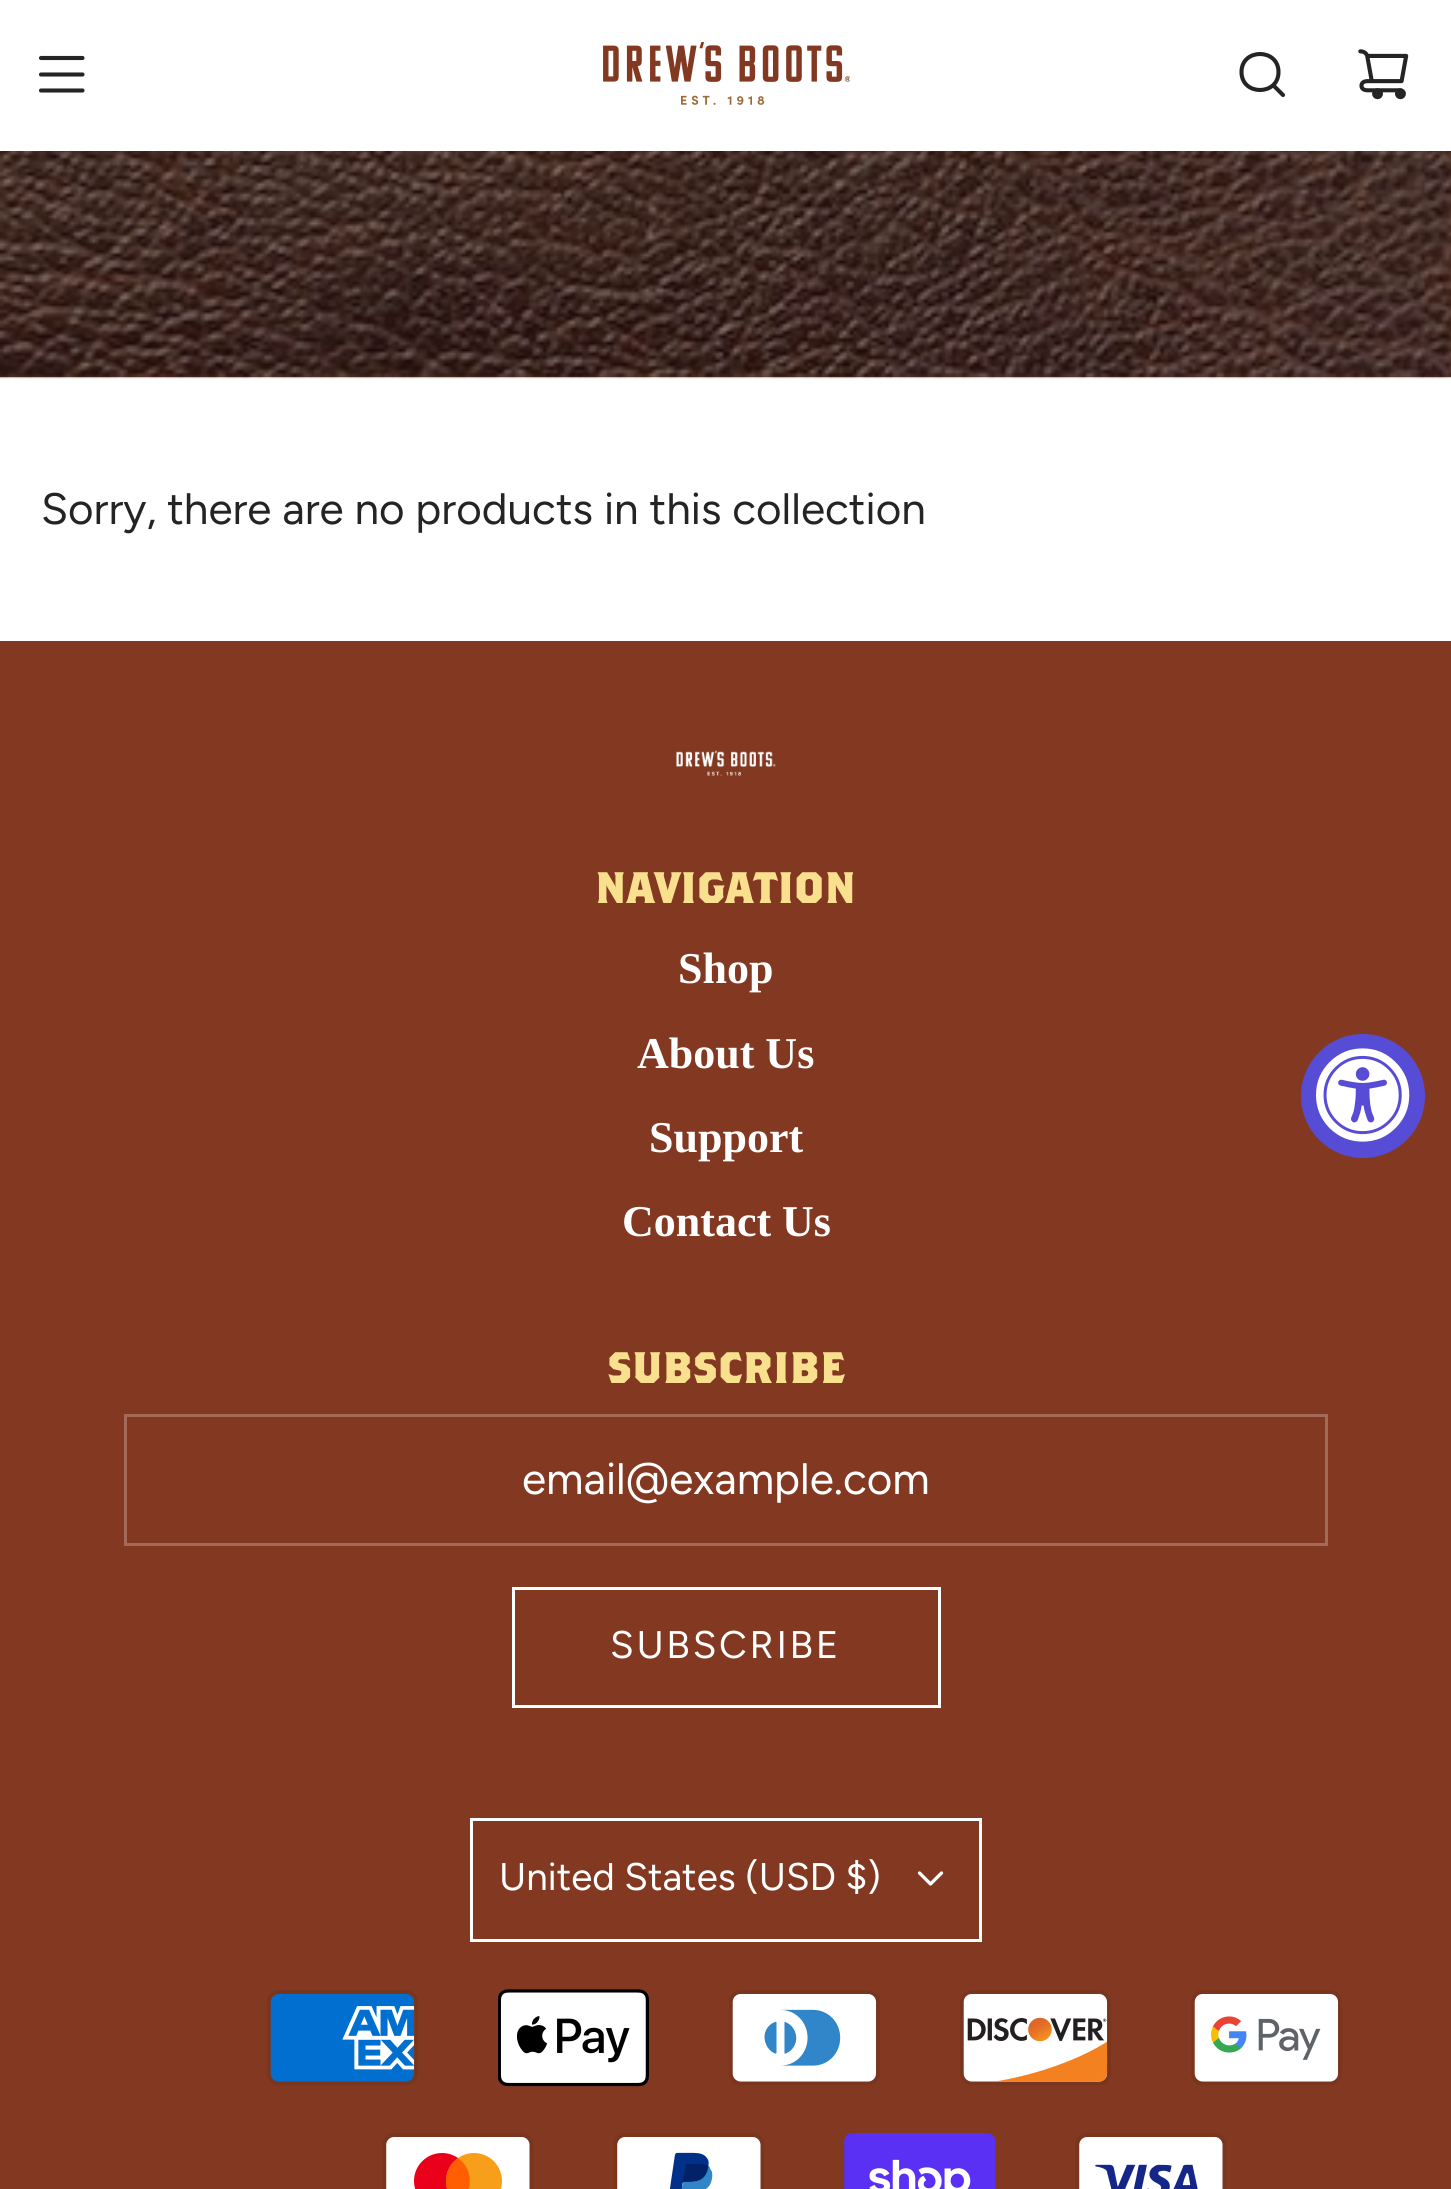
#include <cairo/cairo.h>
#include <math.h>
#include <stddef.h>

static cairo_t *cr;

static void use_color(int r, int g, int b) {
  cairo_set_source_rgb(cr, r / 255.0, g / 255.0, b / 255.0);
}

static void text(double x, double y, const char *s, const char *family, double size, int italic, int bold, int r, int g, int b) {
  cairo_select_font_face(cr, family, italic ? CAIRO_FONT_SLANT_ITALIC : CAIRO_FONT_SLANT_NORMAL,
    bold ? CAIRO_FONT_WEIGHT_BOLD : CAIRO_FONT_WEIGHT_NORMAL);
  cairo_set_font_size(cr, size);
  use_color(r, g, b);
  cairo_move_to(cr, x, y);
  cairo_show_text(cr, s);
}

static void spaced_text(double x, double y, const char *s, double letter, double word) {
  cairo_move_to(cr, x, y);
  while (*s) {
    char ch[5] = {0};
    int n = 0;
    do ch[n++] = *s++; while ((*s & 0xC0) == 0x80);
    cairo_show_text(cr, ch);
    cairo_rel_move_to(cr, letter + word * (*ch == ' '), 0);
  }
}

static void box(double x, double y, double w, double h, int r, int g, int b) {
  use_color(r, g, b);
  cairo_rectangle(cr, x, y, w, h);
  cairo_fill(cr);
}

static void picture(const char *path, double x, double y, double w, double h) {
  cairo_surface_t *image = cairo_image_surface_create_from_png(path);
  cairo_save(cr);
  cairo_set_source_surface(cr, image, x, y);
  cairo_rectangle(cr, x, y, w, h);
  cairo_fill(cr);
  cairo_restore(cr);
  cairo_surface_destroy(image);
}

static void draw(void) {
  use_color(255, 255, 255);
  cairo_paint(cr);
  cairo_new_path(cr);
  cairo_move_to(cr, 41, 58);
  cairo_line_to(cr, 82.5, 58);
  cairo_move_to(cr, 41, 74.5);
  cairo_line_to(cr, 82.5, 74.5);
  cairo_move_to(cr, 41, 90.5);
  cairo_line_to(cr, 82.5, 90.5);
  use_color(36, 36, 36);
  cairo_set_line_width(cr, 4.1);
  cairo_set_line_cap(cr, CAIRO_LINE_CAP_ROUND);
  cairo_set_line_join(cr, CAIRO_LINE_JOIN_ROUND);
  cairo_stroke(cr);
  picture("img_01.png", 603, 42, 247, 63);
  cairo_new_path(cr);
  cairo_move_to(cr, 1273.5, 85.5);
  cairo_line_to(cr, 1283, 95);
  cairo_move_to(cr, 1241.5, 72);
  cairo_curve_to(cr, 1241.5, 96, 1278.5, 96, 1278.5, 72);
  cairo_curve_to(cr, 1278.5, 48, 1241.5, 48, 1241.5, 72);
  cairo_close_path(cr);
  cairo_stroke(cr);
  picture("img_02.png", 1358, 49, 51, 51);
  box(0, 151, 1451, 226, 106, 52, 34);
  picture("img_03.png", 0, 151, 1451, 228);
  box(0, 641, 1451, 1548, 131, 57, 33);
  picture("img_04.png", 676, 750, 100, 26);
  cairo_rectangle(cr, 125.5, 1415.5, 1201, 129);
  use_color(162, 107, 89);
  cairo_set_line_width(cr, 3);
  cairo_set_line_cap(cr, CAIRO_LINE_CAP_BUTT);
  cairo_set_line_join(cr, CAIRO_LINE_JOIN_MITER);
  cairo_stroke(cr);
  cairo_rectangle(cr, 513.5, 1588.5, 426, 118);
  use_color(255, 255, 255);
  cairo_stroke(cr);
  cairo_rectangle(cr, 471.5, 1819.5, 509, 121);
  cairo_stroke(cr);
  cairo_new_path(cr);
  cairo_move_to(cr, 919.5, 1873);
  cairo_line_to(cr, 930.5, 1884);
  cairo_line_to(cr, 941.5, 1873);
  cairo_set_line_width(cr, 3.3);
  cairo_set_line_cap(cr, CAIRO_LINE_CAP_ROUND);
  cairo_set_line_join(cr, CAIRO_LINE_JOIN_ROUND);
  cairo_stroke(cr);
  picture("img_05.png", 267, 1990, 151, 96);
  picture("img_06.png", 498, 1989, 151, 98);
  picture("img_07.png", 729, 1990, 151, 96);
  picture("img_08.png", 960, 1990, 151, 96);
  picture("img_09.png", 1191, 1990, 151, 96);
  picture("img_10.png", 382, 2133, 152, 56);
  picture("img_11.png", 613, 2133, 152, 56);
  picture("img_12.png", 844, 2133, 152, 56);
  picture("img_13.png", 1075, 2133, 152, 56);
  use_color(87, 76, 213);
  cairo_arc(cr, 1363, 1096, 62, 0, 2 * M_PI);
  cairo_fill(cr);
  picture("img_14.png", 1316, 1048, 94, 94);
  text(41, 524, "Sorry, there are no products in this collection", "Figtree", 44, 0, 0, 36, 36, 36);
  text(595, 903, "NAVIGATION", "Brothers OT", 44, 0, 1, 248, 224, 142);
  text(678, 983, "Shop", "Liberation Serif", 44, 0, 1, 255, 255, 255);
  text(637, 1068, "About Us", "Liberation Serif", 44, 0, 1, 255, 255, 255);
  text(649, 1152, "Support", "Liberation Serif", 44, 0, 1, 255, 255, 255);
  text(622, 1236, "Contact Us", "Liberation Serif", 44, 0, 1, 255, 255, 255);
  text(607, 1383, "SUBSCRIBE", "Brothers OT", 44, 0, 1, 248, 224, 142);
  text(522, 1494, "email@example.com", "Figtree", 44, 0, 0, 255, 255, 255);
  cairo_set_font_size(cr, 38.5);
  spaced_text(610, 1658, "SUBSCRIBE", 2.75, 0);
  text(499, 1890, "United States (USD $)", "Figtree", 38.5, 0, 0, 255, 255, 255);
}

int main(void) {
  cairo_surface_t *surface = cairo_image_surface_create(CAIRO_FORMAT_RGB24, 1451, 2189);
  cr = cairo_create(surface);
  cairo_font_options_t *options = cairo_font_options_create();
  cairo_font_options_set_hint_metrics(options, CAIRO_HINT_METRICS_OFF);
  cairo_font_options_set_hint_style(options, CAIRO_HINT_STYLE_NONE);
  cairo_set_font_options(cr, options);
  cairo_set_miter_limit(cr, 4);
  draw();
  cairo_surface_write_to_png(surface, "out.png");
  cairo_font_options_destroy(options);
  cairo_destroy(cr);
  cairo_surface_destroy(surface);
  return 0;
}
